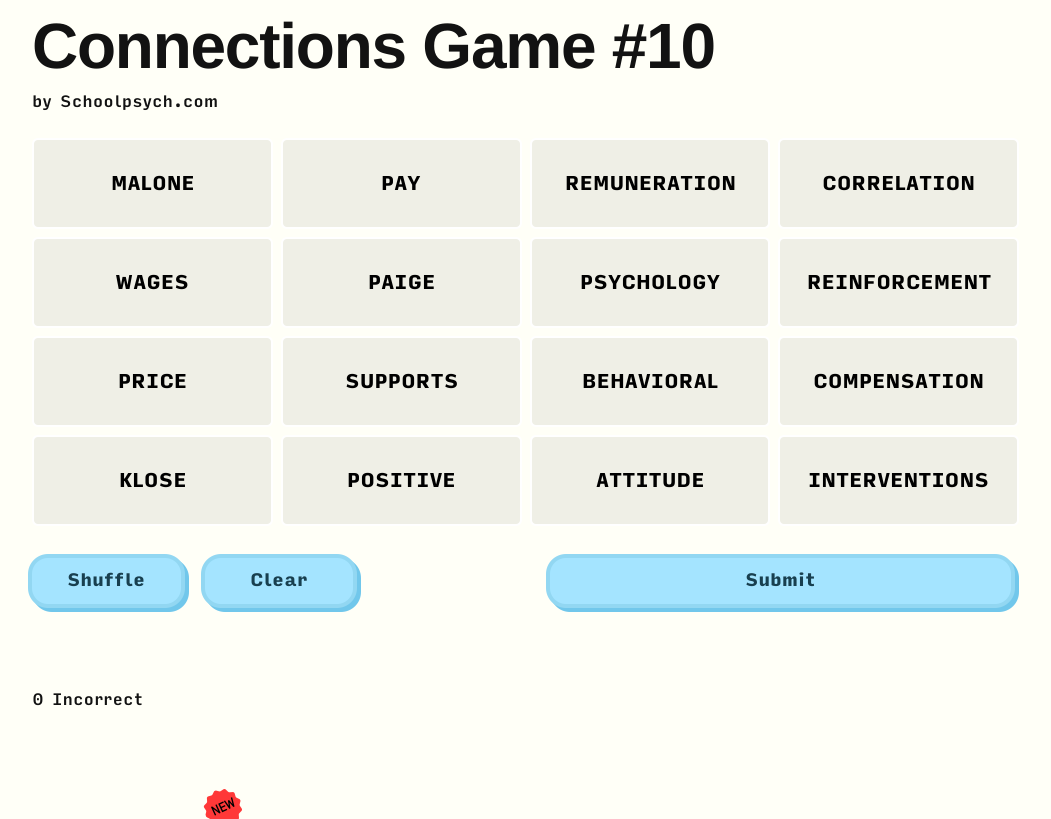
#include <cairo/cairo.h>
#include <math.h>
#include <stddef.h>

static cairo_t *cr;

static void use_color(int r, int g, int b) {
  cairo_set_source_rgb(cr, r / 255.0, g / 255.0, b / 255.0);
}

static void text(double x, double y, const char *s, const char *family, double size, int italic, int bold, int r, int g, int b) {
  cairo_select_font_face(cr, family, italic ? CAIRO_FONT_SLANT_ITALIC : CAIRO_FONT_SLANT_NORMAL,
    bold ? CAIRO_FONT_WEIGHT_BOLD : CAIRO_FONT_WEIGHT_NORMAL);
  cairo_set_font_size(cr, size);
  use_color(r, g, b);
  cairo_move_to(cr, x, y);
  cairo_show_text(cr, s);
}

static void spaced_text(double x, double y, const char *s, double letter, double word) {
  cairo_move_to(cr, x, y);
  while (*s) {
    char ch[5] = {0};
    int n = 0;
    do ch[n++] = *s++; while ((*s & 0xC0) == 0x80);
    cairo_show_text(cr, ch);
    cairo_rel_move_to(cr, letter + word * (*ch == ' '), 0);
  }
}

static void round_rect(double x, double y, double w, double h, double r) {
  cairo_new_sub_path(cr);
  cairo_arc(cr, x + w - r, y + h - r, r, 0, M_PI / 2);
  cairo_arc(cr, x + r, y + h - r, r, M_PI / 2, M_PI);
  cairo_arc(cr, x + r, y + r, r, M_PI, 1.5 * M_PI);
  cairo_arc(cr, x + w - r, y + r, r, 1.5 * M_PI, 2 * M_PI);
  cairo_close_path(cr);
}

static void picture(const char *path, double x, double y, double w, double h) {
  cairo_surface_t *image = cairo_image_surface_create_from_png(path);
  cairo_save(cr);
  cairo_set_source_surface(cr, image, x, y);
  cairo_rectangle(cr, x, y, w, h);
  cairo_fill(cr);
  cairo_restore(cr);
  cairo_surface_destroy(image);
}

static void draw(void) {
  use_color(255, 255, 247);
  cairo_paint(cr);
  use_color(239, 239, 230);
  round_rect(33, 139, 239, 89, 5);
  cairo_fill_preserve(cr);
  use_color(255, 255, 255);
  cairo_stroke(cr);
  use_color(239, 239, 230);
  round_rect(282, 139, 239, 89, 5);
  cairo_fill_preserve(cr);
  use_color(255, 255, 255);
  cairo_stroke(cr);
  use_color(239, 239, 230);
  round_rect(531, 139, 238, 89, 5);
  cairo_fill_preserve(cr);
  use_color(255, 255, 255);
  cairo_stroke(cr);
  use_color(239, 239, 230);
  round_rect(779, 139, 239, 89, 5);
  cairo_fill_preserve(cr);
  use_color(255, 255, 255);
  cairo_stroke(cr);
  use_color(239, 239, 230);
  round_rect(33, 238, 239, 89, 5);
  cairo_fill_preserve(cr);
  use_color(255, 255, 255);
  cairo_stroke(cr);
  use_color(239, 239, 230);
  round_rect(282, 238, 239, 89, 5);
  cairo_fill_preserve(cr);
  use_color(255, 255, 255);
  cairo_stroke(cr);
  use_color(239, 239, 230);
  round_rect(531, 238, 238, 89, 5);
  cairo_fill_preserve(cr);
  use_color(255, 255, 255);
  cairo_stroke(cr);
  use_color(239, 239, 230);
  round_rect(779, 238, 239, 89, 5);
  cairo_fill_preserve(cr);
  use_color(255, 255, 255);
  cairo_stroke(cr);
  use_color(239, 239, 230);
  round_rect(33, 337, 239, 89, 5);
  cairo_fill_preserve(cr);
  use_color(255, 255, 255);
  cairo_stroke(cr);
  use_color(239, 239, 230);
  round_rect(282, 337, 239, 89, 5);
  cairo_fill_preserve(cr);
  use_color(255, 255, 255);
  cairo_stroke(cr);
  use_color(239, 239, 230);
  round_rect(531, 337, 238, 89, 5);
  cairo_fill_preserve(cr);
  use_color(255, 255, 255);
  cairo_stroke(cr);
  use_color(239, 239, 230);
  round_rect(779, 337, 239, 89, 5);
  cairo_fill_preserve(cr);
  use_color(255, 255, 255);
  cairo_stroke(cr);
  use_color(239, 239, 230);
  round_rect(33, 436, 239, 89, 5);
  cairo_fill_preserve(cr);
  use_color(255, 255, 255);
  cairo_stroke(cr);
  use_color(239, 239, 230);
  round_rect(282, 436, 239, 89, 5);
  cairo_fill_preserve(cr);
  use_color(255, 255, 255);
  cairo_stroke(cr);
  use_color(239, 239, 230);
  round_rect(531, 436, 238, 89, 5);
  cairo_fill_preserve(cr);
  use_color(255, 255, 255);
  cairo_stroke(cr);
  use_color(239, 239, 230);
  round_rect(779, 436, 239, 89, 5);
  cairo_fill_preserve(cr);
  use_color(255, 255, 255);
  cairo_stroke(cr);
  use_color(113, 199, 235);
  round_rect(32, 558, 157, 54, 20);
  cairo_fill(cr);
  use_color(164, 228, 255);
  round_rect(30, 556, 153, 50, 18);
  cairo_fill_preserve(cr);
  use_color(146, 215, 242);
  cairo_set_line_width(cr, 4);
  cairo_stroke(cr);
  use_color(113, 199, 235);
  round_rect(205, 558, 156, 54, 20);
  cairo_fill(cr);
  use_color(164, 228, 255);
  round_rect(203, 556, 152, 50, 18);
  cairo_fill_preserve(cr);
  use_color(146, 215, 242);
  cairo_stroke(cr);
  use_color(113, 199, 235);
  round_rect(550, 558, 469, 54, 20);
  cairo_fill(cr);
  use_color(164, 228, 255);
  round_rect(548, 556, 465, 50, 18);
  cairo_fill_preserve(cr);
  use_color(146, 215, 242);
  cairo_stroke(cr);
  picture("img_01.png", 203, 789, 39, 30);
  cairo_select_font_face(cr, "Liberation Sans", CAIRO_FONT_SLANT_NORMAL, CAIRO_FONT_WEIGHT_BOLD);
  cairo_set_font_size(cr, 64);
  use_color(18, 18, 18);
  spaced_text(32, 68, "Connections Game #10", -1.25, 0);
  text(32, 107, "by Schoolpsych.com", "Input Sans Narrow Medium", 16, 0, 0, 18, 18, 18);
  text(111, 190, "MALONE", "Input Sans Narrow Black", 19.25, 0, 0, 0, 0, 0);
  text(381, 190, "PAY", "Input Sans Narrow Black", 19.25, 0, 0, 0, 0, 0);
  text(565, 190, "REMUNERATION", "Input Sans Narrow Black", 19.25, 0, 0, 0, 0, 0);
  text(822, 190, "CORRELATION", "Input Sans Narrow Black", 19.25, 0, 0, 0, 0, 0);
  text(115, 289, "WAGES", "Input Sans Narrow Black", 19.25, 0, 0, 0, 0, 0);
  text(368, 289, "PAIGE", "Input Sans Narrow Black", 19.25, 0, 0, 0, 0, 0);
  text(580, 289, "PSYCHOLOGY", "Input Sans Narrow Black", 19.25, 0, 0, 0, 0, 0);
  text(807, 289, "REINFORCEMENT", "Input Sans Narrow Black", 19.25, 0, 0, 0, 0, 0);
  text(118, 388, "PRICE", "Input Sans Narrow Black", 19.25, 0, 0, 0, 0, 0);
  text(345, 388, "SUPPORTS", "Input Sans Narrow Black", 19.25, 0, 0, 0, 0, 0);
  text(582, 388, "BEHAVIORAL", "Input Sans Narrow Black", 19.25, 0, 0, 0, 0, 0);
  text(813, 388, "COMPENSATION", "Input Sans Narrow Black", 19.25, 0, 0, 0, 0, 0);
  text(119, 487, "KLOSE", "Input Sans Narrow Black", 19.25, 0, 0, 0, 0, 0);
  text(347, 487, "POSITIVE", "Input Sans Narrow Black", 19.25, 0, 0, 0, 0, 0);
  text(596, 487, "ATTITUDE", "Input Sans Narrow Black", 19.25, 0, 0, 0, 0, 0);
  text(808, 487, "INTERVENTIONS", "Input Sans Narrow Black", 19.25, 0, 0, 0, 0, 0);
  cairo_set_font_size(cr, 17.5);
  use_color(24, 63, 79);
  spaced_text(67, 586, "Shuffle", -0.25, 0);
  spaced_text(250, 586, "Clear", -0.25, 0);
  spaced_text(745, 586, "Submit", -0.25, 0);
  text(32, 705, "0 Incorrect", "Input Sans Narrow Medium", 16, 0, 0, 18, 18, 18);
  cairo_save(cr);
  cairo_translate(cr, 214, 816);
  cairo_rotate(cr, -25 * M_PI / 180);
  text(0, 0, "NEW", "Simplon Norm", 13, 0, 1, 0, 0, 0);
  cairo_restore(cr);
}

int main(void) {
  cairo_surface_t *surface = cairo_image_surface_create(CAIRO_FORMAT_RGB24, 1051, 819);
  cr = cairo_create(surface);
  cairo_font_options_t *options = cairo_font_options_create();
  cairo_font_options_set_hint_metrics(options, CAIRO_HINT_METRICS_OFF);
  cairo_font_options_set_hint_style(options, CAIRO_HINT_STYLE_NONE);
  cairo_set_font_options(cr, options);
  cairo_set_miter_limit(cr, 4);
  draw();
  cairo_surface_write_to_png(surface, "out.png");
  cairo_font_options_destroy(options);
  cairo_destroy(cr);
  cairo_surface_destroy(surface);
  return 0;
}
